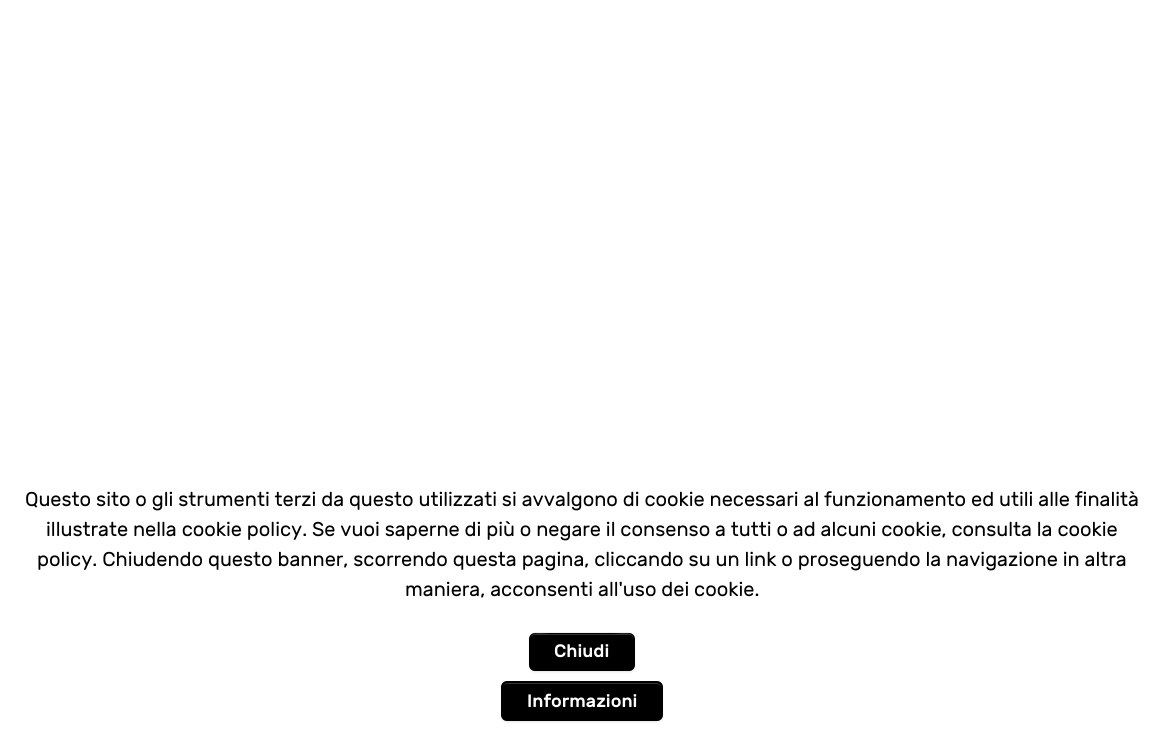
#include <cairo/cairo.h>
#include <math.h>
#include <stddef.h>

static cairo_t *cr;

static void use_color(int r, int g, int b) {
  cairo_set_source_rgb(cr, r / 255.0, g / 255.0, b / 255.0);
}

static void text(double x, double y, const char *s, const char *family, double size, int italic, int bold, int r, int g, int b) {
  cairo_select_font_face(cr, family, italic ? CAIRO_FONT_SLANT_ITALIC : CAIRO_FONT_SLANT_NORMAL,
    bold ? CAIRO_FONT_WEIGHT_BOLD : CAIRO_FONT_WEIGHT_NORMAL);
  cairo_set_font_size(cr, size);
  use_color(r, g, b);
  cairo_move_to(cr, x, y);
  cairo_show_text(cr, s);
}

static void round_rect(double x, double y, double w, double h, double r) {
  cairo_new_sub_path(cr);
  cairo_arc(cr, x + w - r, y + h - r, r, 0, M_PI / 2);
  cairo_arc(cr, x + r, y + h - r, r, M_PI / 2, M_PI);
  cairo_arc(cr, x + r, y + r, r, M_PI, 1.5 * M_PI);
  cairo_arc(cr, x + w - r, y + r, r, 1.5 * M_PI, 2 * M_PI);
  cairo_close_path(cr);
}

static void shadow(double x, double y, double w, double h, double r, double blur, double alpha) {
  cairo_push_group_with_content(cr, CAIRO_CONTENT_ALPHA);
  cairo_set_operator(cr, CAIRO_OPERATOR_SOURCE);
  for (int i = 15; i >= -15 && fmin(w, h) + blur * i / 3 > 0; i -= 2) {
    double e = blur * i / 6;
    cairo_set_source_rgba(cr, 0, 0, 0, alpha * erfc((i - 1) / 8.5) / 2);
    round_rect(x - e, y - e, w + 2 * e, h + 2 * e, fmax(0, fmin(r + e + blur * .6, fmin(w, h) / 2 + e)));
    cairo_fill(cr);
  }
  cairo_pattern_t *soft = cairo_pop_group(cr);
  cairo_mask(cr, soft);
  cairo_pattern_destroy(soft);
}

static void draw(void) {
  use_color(255, 255, 255);
  cairo_paint(cr);
  use_color(0, 0, 0);
  shadow(529, 634, 106, 39, 6, 1, 0.05);
  use_color(0, 0, 0);
  round_rect(529, 633, 106, 38, 6);
  cairo_fill(cr);
  use_color(51, 51, 51);
  cairo_new_path(cr);
  cairo_move_to(cr, 535, 635);
  cairo_line_to(cr, 629, 635);
  cairo_curve_to(cr, 632, 635, 634, 637, 634, 640);
  cairo_curve_to(cr, 634, 630, 619, 634, 613, 634);
  cairo_line_to(cr, 551, 634);
  cairo_curve_to(cr, 545, 634, 530, 630, 530, 640);
  cairo_curve_to(cr, 530, 637, 532, 635, 535, 635);
  cairo_close_path(cr);
  cairo_fill(cr);
  cairo_new_path(cr);
  cairo_move_to(cr, 633, 669);
  cairo_line_to(cr, 629.5, 670.5);
  cairo_line_to(cr, 534, 670.5);
  cairo_line_to(cr, 531, 669);
  cairo_set_source_rgba(cr, 0, 0, 0, 0.25);
  cairo_set_line_width(cr, 1.2);
  cairo_stroke(cr);
  cairo_new_path(cr);
  cairo_move_to(cr, 531, 669);
  cairo_curve_to(cr, 529, 667, 529.5, 663.5, 529.5, 661);
  cairo_line_to(cr, 529.5, 652);
  cairo_curve_to(cr, 529.5, 630, 527.5, 633, 550.5, 633);
  cairo_line_to(cr, 613.5, 633);
  cairo_curve_to(cr, 636.5, 633, 634.5, 630, 634.5, 652);
  cairo_line_to(cr, 634.5, 661);
  cairo_curve_to(cr, 634.5, 663.5, 635, 667, 633, 669);
  cairo_set_source_rgba(cr, 0, 0, 0, 0.1);
  cairo_stroke(cr);
  use_color(0, 0, 0);
  shadow(501, 683, 162, 40, 6, 1, 0.05);
  use_color(0, 0, 0);
  round_rect(501, 681, 162, 40, 6);
  cairo_fill(cr);
  use_color(51, 51, 51);
  cairo_new_path(cr);
  cairo_move_to(cr, 507, 684);
  cairo_line_to(cr, 656, 684);
  cairo_curve_to(cr, 659, 684, 661, 686, 661, 688);
  cairo_curve_to(cr, 661, 685, 659, 683, 656, 683);
  cairo_line_to(cr, 508, 683);
  cairo_curve_to(cr, 506, 683, 505, 684, 504, 685);
  cairo_close_path(cr);
  cairo_fill(cr);
  cairo_new_path(cr);
  cairo_move_to(cr, 660.5, 719);
  cairo_curve_to(cr, 659.5, 720, 658, 720.5, 656.5, 720.5);
  cairo_line_to(cr, 507, 720.5);
  cairo_curve_to(cr, 506, 720.5, 504.5, 720, 503.5, 719);
  cairo_set_source_rgba(cr, 0, 0, 0, 0.25);
  cairo_stroke(cr);
  cairo_new_path(cr);
  cairo_move_to(cr, 503.5, 719);
  cairo_curve_to(cr, 500.5, 716, 502, 709.5, 502, 706);
  cairo_curve_to(cr, 502, 676, 498.5, 682, 532, 682);
  cairo_line_to(cr, 631.5, 682);
  cairo_curve_to(cr, 665.5, 682, 662, 676, 662, 706);
  cairo_curve_to(cr, 662, 709.5, 663.5, 716, 660.5, 719);
  cairo_set_source_rgba(cr, 0, 0, 0, 0.1);
  cairo_stroke(cr);
  text(25, 506, "Questo sito o gli strumenti terzi da questo utilizzati si avvalgono di cookie necessari al funzionamento ed utili alle finalità", "Rubik", 20, 0, 0, 0, 0, 0);
  text(46, 536, "illustrate nella cookie policy. Se vuoi saperne di più o negare il consenso a tutti o ad alcuni cookie, consulta la cookie", "Rubik", 20, 0, 0, 0, 0, 0);
  text(37, 566, "policy. Chiudendo questo banner, scorrendo questa pagina, cliccando su un link o proseguendo la navigazione in altra", "Rubik", 20, 0, 0, 0, 0, 0);
  text(405, 596, "maniera, acconsenti all'uso dei cookie.", "Rubik", 20, 0, 0, 0, 0, 0);
  text(554, 657, "Chiudi", "Rubik Medium", 18, 0, 0, 255, 255, 255);
  text(527, 707, "Informazioni", "Rubik Medium", 18, 0, 0, 255, 255, 255);
}

int main(void) {
  cairo_surface_t *surface = cairo_image_surface_create(CAIRO_FORMAT_RGB24, 1163, 743);
  cr = cairo_create(surface);
  cairo_font_options_t *options = cairo_font_options_create();
  cairo_font_options_set_hint_metrics(options, CAIRO_HINT_METRICS_OFF);
  cairo_font_options_set_hint_style(options, CAIRO_HINT_STYLE_NONE);
  cairo_set_font_options(cr, options);
  cairo_set_miter_limit(cr, 4);
  draw();
  cairo_surface_write_to_png(surface, "out.png");
  cairo_font_options_destroy(options);
  cairo_destroy(cr);
  cairo_surface_destroy(surface);
  return 0;
}
